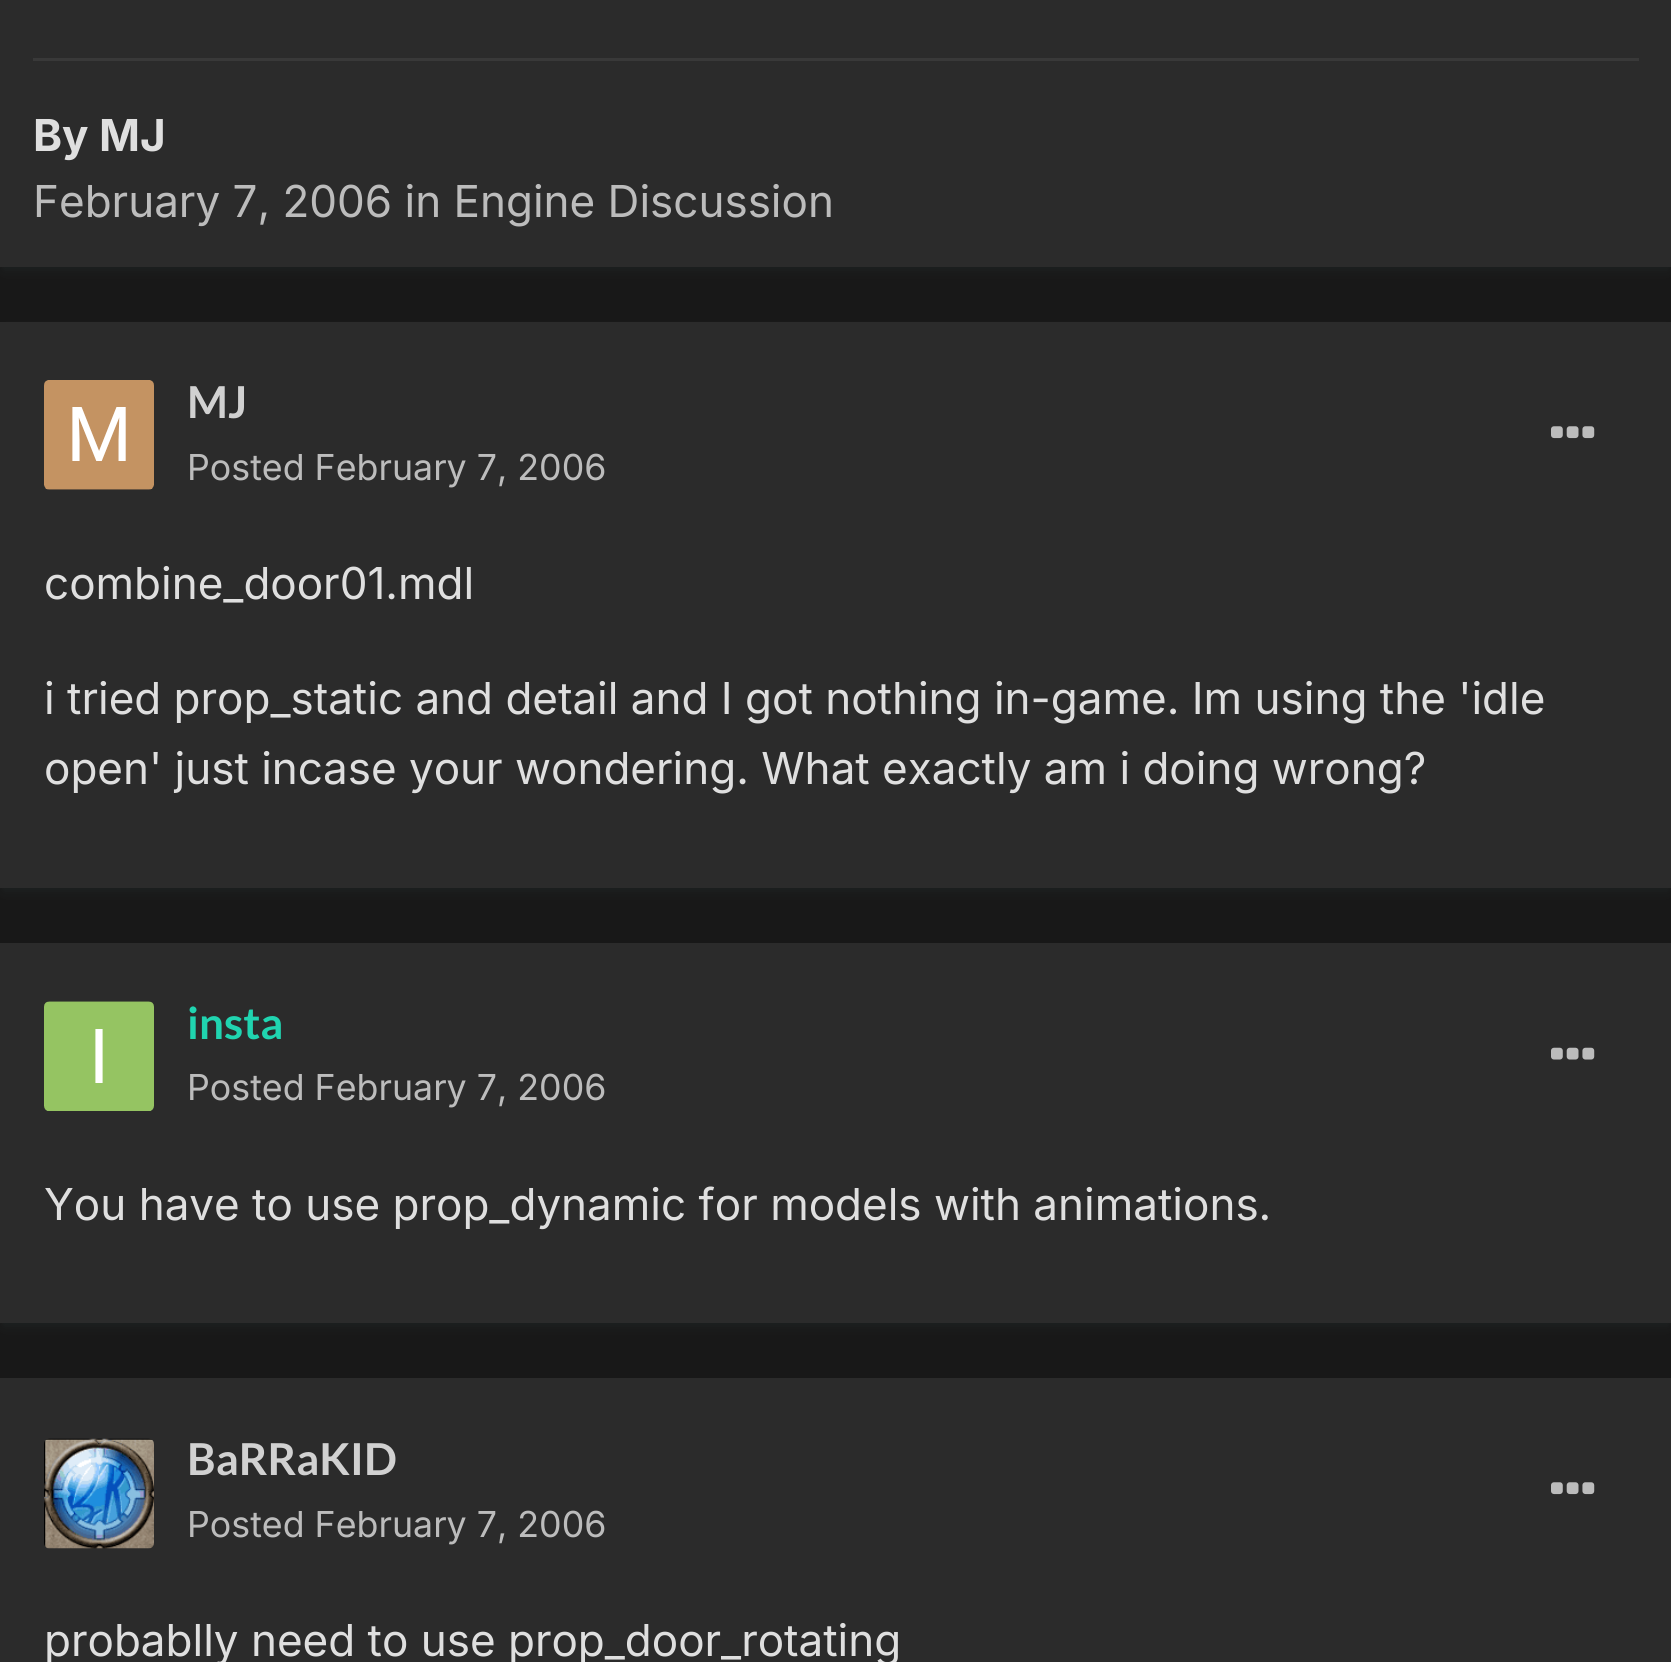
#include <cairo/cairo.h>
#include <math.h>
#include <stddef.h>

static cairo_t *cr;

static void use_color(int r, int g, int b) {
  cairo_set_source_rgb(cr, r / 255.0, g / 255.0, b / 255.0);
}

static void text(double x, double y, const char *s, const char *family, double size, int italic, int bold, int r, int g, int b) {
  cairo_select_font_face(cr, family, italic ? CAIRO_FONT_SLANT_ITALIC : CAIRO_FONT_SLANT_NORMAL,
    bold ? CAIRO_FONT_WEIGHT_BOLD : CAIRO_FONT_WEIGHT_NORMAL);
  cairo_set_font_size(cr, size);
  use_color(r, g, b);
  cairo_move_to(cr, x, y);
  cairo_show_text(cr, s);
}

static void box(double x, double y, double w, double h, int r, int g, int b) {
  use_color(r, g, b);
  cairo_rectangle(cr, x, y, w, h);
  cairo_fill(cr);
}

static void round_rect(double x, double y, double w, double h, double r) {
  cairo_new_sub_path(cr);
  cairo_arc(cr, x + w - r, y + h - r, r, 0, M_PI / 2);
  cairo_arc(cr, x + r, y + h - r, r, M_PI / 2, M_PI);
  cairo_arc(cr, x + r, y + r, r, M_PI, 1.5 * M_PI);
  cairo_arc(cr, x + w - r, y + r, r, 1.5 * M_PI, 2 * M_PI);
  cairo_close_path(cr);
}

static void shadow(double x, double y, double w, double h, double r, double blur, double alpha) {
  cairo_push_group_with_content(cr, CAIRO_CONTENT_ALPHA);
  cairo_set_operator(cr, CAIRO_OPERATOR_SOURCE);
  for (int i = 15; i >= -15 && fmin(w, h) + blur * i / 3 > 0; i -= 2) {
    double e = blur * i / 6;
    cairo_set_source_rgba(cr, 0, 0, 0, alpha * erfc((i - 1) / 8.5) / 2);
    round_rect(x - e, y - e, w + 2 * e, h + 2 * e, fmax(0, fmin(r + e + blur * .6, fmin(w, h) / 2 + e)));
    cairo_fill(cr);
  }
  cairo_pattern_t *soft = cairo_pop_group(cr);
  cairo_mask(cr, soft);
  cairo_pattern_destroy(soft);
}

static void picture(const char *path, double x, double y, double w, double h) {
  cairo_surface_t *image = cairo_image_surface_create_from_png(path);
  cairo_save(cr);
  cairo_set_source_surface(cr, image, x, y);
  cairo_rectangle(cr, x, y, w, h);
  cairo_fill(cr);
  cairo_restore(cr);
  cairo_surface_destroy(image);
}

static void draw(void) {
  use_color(24, 24, 24);
  cairo_paint(cr);
  use_color(81, 120, 126);
  shadow(3, -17, 1666, 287, 0, 5.5, 0.1);
  box(0, 0, 1671, 267, 43, 43, 43);
  box(33, 58, 1606, 3, 57, 57, 57);
  use_color(81, 120, 126);
  shadow(3, 330, 1666, 561, 0, 5.5, 0.1);
  box(0, 322, 1671, 566, 43, 43, 43);
  picture("img_01.png", 44, 380, 110, 110);
  picture("img_02.png", 1551, 426, 44, 13);
  use_color(81, 120, 126);
  shadow(3, 952, 1666, 374, 0, 5.5, 0.1);
  box(0, 943, 1671, 380, 43, 43, 43);
  picture("img_03.png", 44, 1001, 110, 110);
  picture("img_04.png", 1551, 1047, 44, 13);
  box(0, 1378, 1671, 284, 43, 43, 43);
  picture("img_05.png", 44, 1438, 110, 111);
  picture("img_02.png", 1551, 1482, 44, 13);
  text(33, 151, "By MJ", "Inter", 44, 0, 1, 223, 223, 223);
  text(33, 217, "February 7, 2006 in Engine Discussion", "Inter", 44, 0, 0, 188, 188, 188);
  text(187, 418, "MJ", "Lato", 44, 0, 1, 209, 209, 209);
  text(187, 480, "Posted February 7, 2006", "Inter", 35.75, 0, 0, 188, 188, 188);
  text(44, 599, "combine_door01.mdl", "Inter", 44, 0, 0, 223, 223, 223);
  text(44, 714, "i tried prop_static and detail and I got nothing in-game. Im using the 'idle", "Inter", 44, 0, 0, 223, 223, 223);
  text(44, 784, "open' just incase your wondering. What exactly am i doing wrong?", "Inter", 44, 0, 0, 223, 223, 223);
  text(187, 1039, "insta", "Lato", 44, 0, 1, 32, 212, 176);
  text(187, 1100, "Posted February 7, 2006", "Inter", 35.75, 0, 0, 188, 188, 188);
  text(44, 1220, "You have to use prop_dynamic for models with animations.", "Inter", 44, 0, 0, 223, 223, 223);
  text(187, 1475, "BaRRaKID", "Lato", 44, 0, 1, 209, 209, 209);
  text(187, 1537, "Posted February 7, 2006", "Inter", 35.75, 0, 0, 188, 188, 188);
  text(44, 1656, "probablly need to use prop_door_rotating", "Inter", 44, 0, 0, 223, 223, 223);
}

int main(void) {
  cairo_surface_t *surface = cairo_image_surface_create(CAIRO_FORMAT_RGB24, 1671, 1662);
  cr = cairo_create(surface);
  cairo_font_options_t *options = cairo_font_options_create();
  cairo_font_options_set_hint_metrics(options, CAIRO_HINT_METRICS_OFF);
  cairo_font_options_set_hint_style(options, CAIRO_HINT_STYLE_NONE);
  cairo_set_font_options(cr, options);
  cairo_set_miter_limit(cr, 4);
  draw();
  cairo_surface_write_to_png(surface, "out.png");
  cairo_font_options_destroy(options);
  cairo_destroy(cr);
  cairo_surface_destroy(surface);
  return 0;
}
